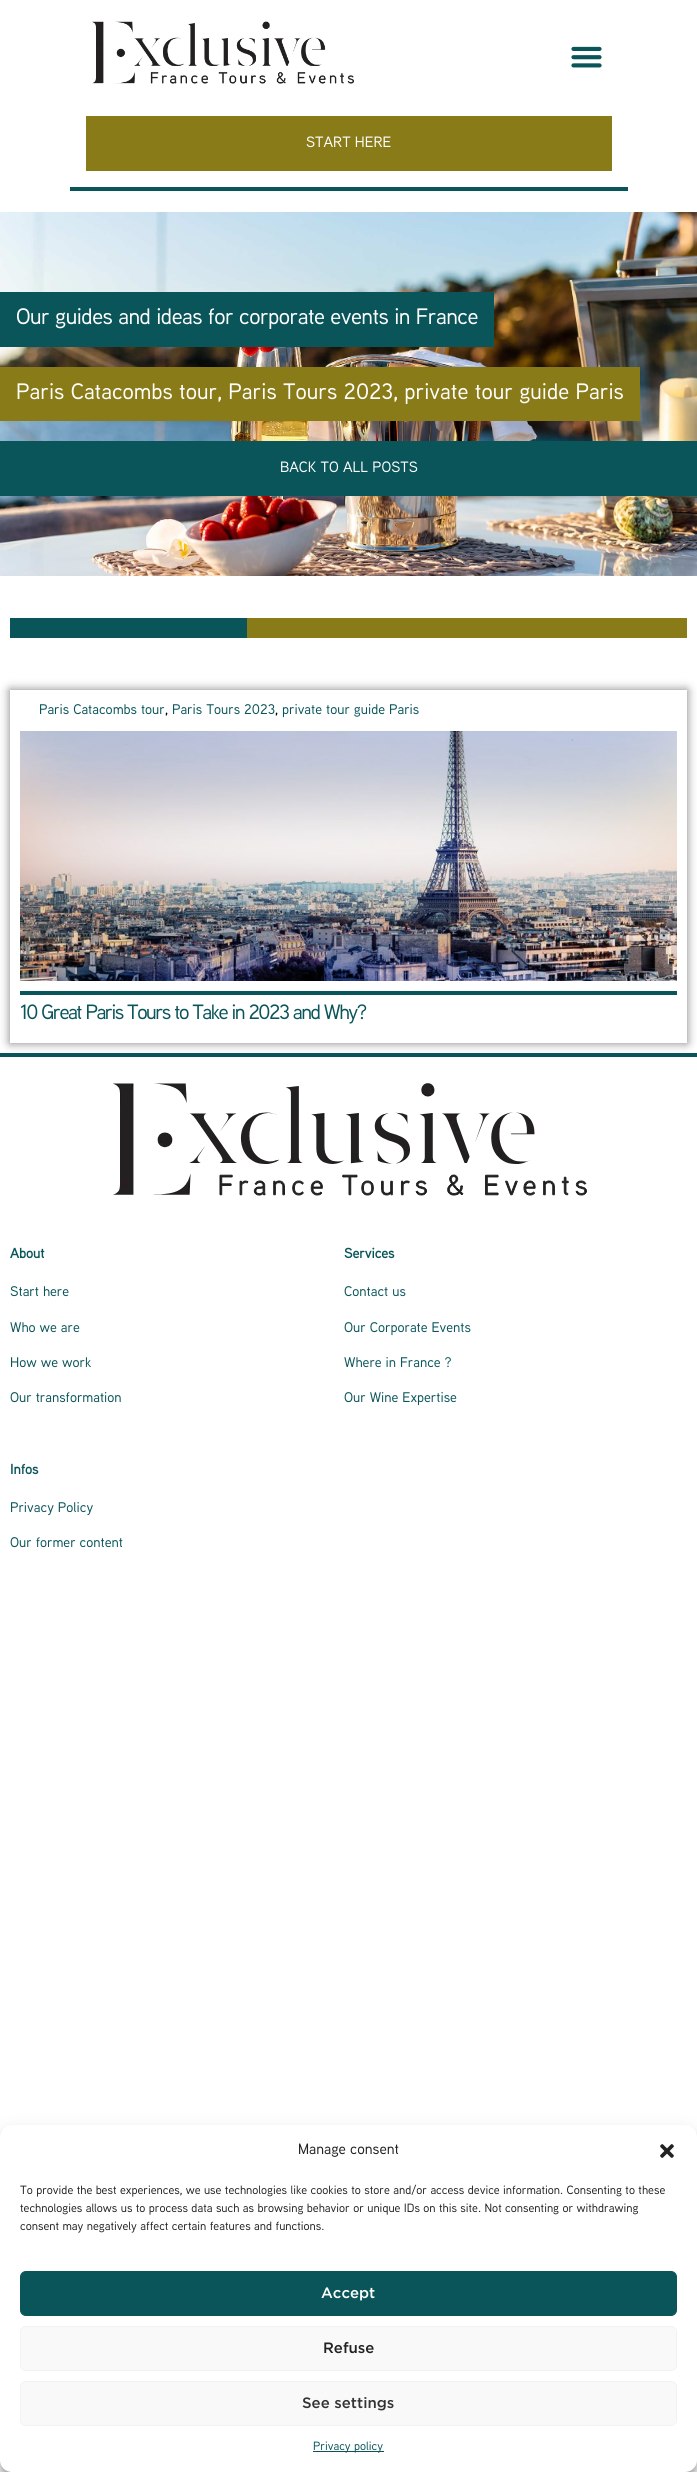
#include <cairo/cairo.h>
#include <math.h>
#include <stddef.h>

static cairo_t *cr;

static void use_color(int r, int g, int b) {
  cairo_set_source_rgb(cr, r / 255.0, g / 255.0, b / 255.0);
}

static void text(double x, double y, const char *s, const char *family, double size, int italic, int bold, int r, int g, int b) {
  cairo_select_font_face(cr, family, italic ? CAIRO_FONT_SLANT_ITALIC : CAIRO_FONT_SLANT_NORMAL,
    bold ? CAIRO_FONT_WEIGHT_BOLD : CAIRO_FONT_WEIGHT_NORMAL);
  cairo_set_font_size(cr, size);
  use_color(r, g, b);
  cairo_move_to(cr, x, y);
  cairo_show_text(cr, s);
}

static void spaced_text(double x, double y, const char *s, double letter, double word) {
  cairo_move_to(cr, x, y);
  while (*s) {
    char ch[5] = {0};
    int n = 0;
    do ch[n++] = *s++; while ((*s & 0xC0) == 0x80);
    cairo_show_text(cr, ch);
    cairo_rel_move_to(cr, letter + word * (*ch == ' '), 0);
  }
}

static void box(double x, double y, double w, double h, int r, int g, int b) {
  use_color(r, g, b);
  cairo_rectangle(cr, x, y, w, h);
  cairo_fill(cr);
}

static void round_rect(double x, double y, double w, double h, double r) {
  cairo_new_sub_path(cr);
  cairo_arc(cr, x + w - r, y + h - r, r, 0, M_PI / 2);
  cairo_arc(cr, x + r, y + h - r, r, M_PI / 2, M_PI);
  cairo_arc(cr, x + r, y + r, r, M_PI, 1.5 * M_PI);
  cairo_arc(cr, x + w - r, y + r, r, 1.5 * M_PI, 2 * M_PI);
  cairo_close_path(cr);
}

static void shadow(double x, double y, double w, double h, double r, double blur, double alpha) {
  cairo_push_group_with_content(cr, CAIRO_CONTENT_ALPHA);
  cairo_set_operator(cr, CAIRO_OPERATOR_SOURCE);
  for (int i = 15; i >= -15 && fmin(w, h) + blur * i / 3 > 0; i -= 2) {
    double e = blur * i / 6;
    cairo_set_source_rgba(cr, 0, 0, 0, alpha * erfc((i - 1) / 8.5) / 2);
    round_rect(x - e, y - e, w + 2 * e, h + 2 * e, fmax(0, fmin(r + e + blur * .6, fmin(w, h) / 2 + e)));
    cairo_fill(cr);
  }
  cairo_pattern_t *soft = cairo_pop_group(cr);
  cairo_mask(cr, soft);
  cairo_pattern_destroy(soft);
}

static void picture(const char *path, double x, double y, double w, double h) {
  cairo_surface_t *image = cairo_image_surface_create_from_png(path);
  cairo_save(cr);
  cairo_set_source_surface(cr, image, x, y);
  cairo_rectangle(cr, x, y, w, h);
  cairo_fill(cr);
  cairo_restore(cr);
  cairo_surface_destroy(image);
}

static void draw(void) {
  use_color(255, 255, 255);
  cairo_paint(cr);
  box(70, 187, 558, 4, 10, 85, 90);
  picture("img_01.png", 92, 21, 262, 63);
  picture("img_02.png", 571, 46, 31, 22);
  box(86, 116, 526, 55, 138, 123, 25);
  picture("img_03.png", 0, 212, 697, 364);
  box(0, 292, 494, 55, 10, 85, 90);
  box(0, 367, 640, 54, 138, 123, 25);
  box(0, 441, 697, 55, 10, 85, 90);
  box(10, 618, 237, 20, 10, 85, 90);
  box(247, 618, 440, 20, 138, 123, 25);
  cairo_save(cr);
  cairo_set_fill_rule(cr, CAIRO_FILL_RULE_EVEN_ODD);
  cairo_new_path(cr);
  cairo_move_to(cr, 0, 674);
  cairo_line_to(cr, 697, 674);
  cairo_line_to(cr, 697, 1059);
  cairo_line_to(cr, 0, 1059);
  cairo_close_path(cr);
  cairo_move_to(cr, 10, 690);
  cairo_line_to(cr, 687, 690);
  cairo_line_to(cr, 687, 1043);
  cairo_line_to(cr, 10, 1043);
  cairo_close_path(cr);
  cairo_clip(cr);
  use_color(0, 0, 0);
  shadow(10, 690, 677, 353, 0, 5, 0.5);
  cairo_restore(cr);
  picture("img_04.png", 20, 731, 657, 250);
  box(20, 991, 657, 4, 10, 85, 90);
  box(0, 1053, 697, 4, 10, 85, 90);
  picture("img_05.png", 113, 1083, 474, 113);
  use_color(0, 0, 0);
  shadow(0, 2131, 697, 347, 12, 3, 0.23);
  shadow(0, 2135, 697, 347, 12, 10, 0.19);
  use_color(255, 255, 255);
  round_rect(0, 2125, 697, 347, 12);
  cairo_fill(cr);
  picture("img_06.png", 660, 2144, 14, 14);
  use_color(10, 85, 90);
  round_rect(20.5, 2271.5, 656, 44, 5.5);
  cairo_fill_preserve(cr);
  cairo_set_line_width(cr, 1);
  cairo_stroke(cr);
  use_color(249, 249, 249);
  round_rect(20.5, 2326.5, 656, 44, 5.5);
  cairo_fill_preserve(cr);
  use_color(242, 242, 242);
  cairo_stroke(cr);
  use_color(249, 249, 249);
  round_rect(20.5, 2381.5, 656, 44, 5.5);
  cairo_fill_preserve(cr);
  use_color(242, 242, 242);
  cairo_stroke(cr);
  box(313, 2451, 71, 1, 10, 85, 90);
  text(306, 147, "START HERE", "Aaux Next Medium", 15, 0, 0, 255, 255, 255);
  cairo_set_font_size(cr, 22.4);
  spaced_text(16, 324, "Our guides and ideas for corporate events in France", -0.5, 0);
  text(16, 399, "Paris Catacombs tour, Paris Tours 2023, private tour guide Paris", "Aaux Next Medium", 22.4, 0, 0, 255, 255, 255);
  text(280, 472, "BACK TO ALL POSTS", "Aaux Next Medium", 15, 0, 0, 255, 255, 255);
  text(39, 714, "Paris Catacombs tour", "Aaux Next Medium", 14, 0, 0, 10, 85, 90);
  text(165, 714, ",", "Aaux Next Medium", 14, 0, 0, 0, 0, 0);
  text(172, 714, "Paris Tours 2023", "Aaux Next Medium", 14, 0, 0, 10, 85, 90);
  text(275, 714, ",", "Aaux Next Medium", 14, 0, 0, 0, 0, 0);
  text(282, 714, "private tour guide Paris", "Aaux Next Medium", 14, 0, 0, 10, 85, 90);
  cairo_set_font_size(cr, 20.75);
  spaced_text(20, 1019, "10 Great Paris Tours to Take in 2023 and Why?", -1.5, 0);
  text(10, 1258, "About", "Aaux Next", 14, 0, 1, 10, 85, 90);
  text(10, 1296, "Start here", "Aaux Next Medium", 14, 0, 0, 10, 85, 90);
  text(10, 1332, "Who we are", "Aaux Next Medium", 14, 0, 0, 10, 85, 90);
  text(10, 1367, "How we work", "Aaux Next Medium", 14, 0, 0, 10, 85, 90);
  text(10, 1402, "Our transformation", "Aaux Next Medium", 14, 0, 0, 10, 85, 90);
  text(344, 1258, "Services", "Aaux Next", 14, 0, 1, 10, 85, 90);
  text(344, 1296, "Contact us", "Aaux Next Medium", 14, 0, 0, 10, 85, 90);
  text(344, 1332, "Our Corporate Events", "Aaux Next Medium", 14, 0, 0, 10, 85, 90);
  text(344, 1367, "Where in France ?", "Aaux Next Medium", 14, 0, 0, 10, 85, 90);
  text(344, 1402, "Our Wine Expertise", "Aaux Next Medium", 14, 0, 0, 10, 85, 90);
  text(10, 1474, "Infos", "Aaux Next", 14, 0, 1, 10, 85, 90);
  text(10, 1512, "Privacy Policy", "Aaux Next Medium", 14, 0, 0, 10, 85, 90);
  text(10, 1547, "Our former content", "Aaux Next Medium", 14, 0, 0, 10, 85, 90);
  text(298, 2154, "Manage consent", "Aaux Next Medium", 15, 0, 0, 34, 34, 34);
  text(20, 2194, "To provide the best experiences, we use technologies like cookies to store and/or access device information. Consenting to these", "Aaux Next Medium", 12, 0, 0, 34, 34, 34);
  text(20, 2212, "technologies allows us to process data such as browsing behavior or unique IDs on this site. Not consenting or withdrawing", "Aaux Next Medium", 12, 0, 0, 34, 34, 34);
  text(20, 2230, "consent may negatively affect certain features and functions.", "Aaux Next Medium", 12, 0, 0, 34, 34, 34);
  text(321, 2298, "Accept", "Gotham Medium", 15, 0, 0, 255, 255, 255);
  text(323, 2353, "Refuse", "Gotham Medium", 15, 0, 0, 34, 34, 34);
  text(302, 2408, "See settings", "Gotham Medium", 15, 0, 0, 51, 51, 51);
  text(313, 2450, "Privacy policy", "Aaux Next Medium", 12, 0, 0, 10, 85, 90);
}

int main(void) {
  cairo_surface_t *surface = cairo_image_surface_create(CAIRO_FORMAT_RGB24, 697, 2472);
  cr = cairo_create(surface);
  cairo_font_options_t *options = cairo_font_options_create();
  cairo_font_options_set_hint_metrics(options, CAIRO_HINT_METRICS_OFF);
  cairo_font_options_set_hint_style(options, CAIRO_HINT_STYLE_NONE);
  cairo_set_font_options(cr, options);
  cairo_set_miter_limit(cr, 4);
  draw();
  cairo_surface_write_to_png(surface, "out.png");
  cairo_font_options_destroy(options);
  cairo_destroy(cr);
  cairo_surface_destroy(surface);
  return 0;
}
